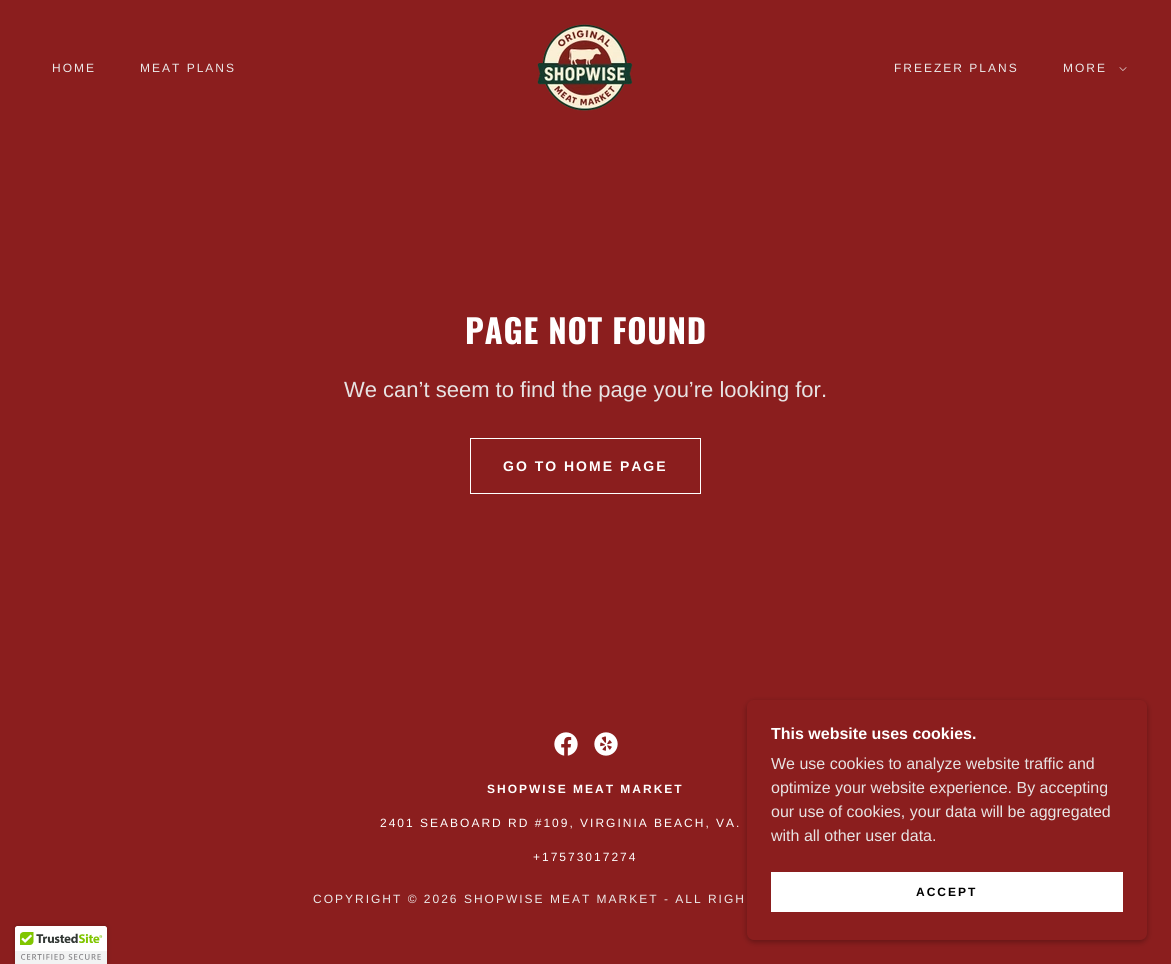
#include <cairo/cairo.h>
#include <math.h>
#include <stddef.h>

static cairo_t *cr;

static void use_color(int r, int g, int b) {
  cairo_set_source_rgb(cr, r / 255.0, g / 255.0, b / 255.0);
}

static void text(double x, double y, const char *s, const char *family, double size, int italic, int bold, int r, int g, int b) {
  cairo_select_font_face(cr, family, italic ? CAIRO_FONT_SLANT_ITALIC : CAIRO_FONT_SLANT_NORMAL,
    bold ? CAIRO_FONT_WEIGHT_BOLD : CAIRO_FONT_WEIGHT_NORMAL);
  cairo_set_font_size(cr, size);
  use_color(r, g, b);
  cairo_move_to(cr, x, y);
  cairo_show_text(cr, s);
}

static void spaced_text(double x, double y, const char *s, double letter, double word) {
  cairo_move_to(cr, x, y);
  while (*s) {
    char ch[5] = {0};
    int n = 0;
    do ch[n++] = *s++; while ((*s & 0xC0) == 0x80);
    cairo_show_text(cr, ch);
    cairo_rel_move_to(cr, letter + word * (*ch == ' '), 0);
  }
}

static void box(double x, double y, double w, double h, int r, int g, int b) {
  use_color(r, g, b);
  cairo_rectangle(cr, x, y, w, h);
  cairo_fill(cr);
}

static void round_rect(double x, double y, double w, double h, double r) {
  cairo_new_sub_path(cr);
  cairo_arc(cr, x + w - r, y + h - r, r, 0, M_PI / 2);
  cairo_arc(cr, x + r, y + h - r, r, M_PI / 2, M_PI);
  cairo_arc(cr, x + r, y + r, r, M_PI, 1.5 * M_PI);
  cairo_arc(cr, x + w - r, y + r, r, 1.5 * M_PI, 2 * M_PI);
  cairo_close_path(cr);
}

static void shadow(double x, double y, double w, double h, double r, double blur, double alpha) {
  cairo_push_group_with_content(cr, CAIRO_CONTENT_ALPHA);
  cairo_set_operator(cr, CAIRO_OPERATOR_SOURCE);
  for (int i = 15; i >= -15 && fmin(w, h) + blur * i / 3 > 0; i -= 2) {
    double e = blur * i / 6;
    cairo_set_source_rgba(cr, 0, 0, 0, alpha * erfc((i - 1) / 8.5) / 2);
    round_rect(x - e, y - e, w + 2 * e, h + 2 * e, fmax(0, fmin(r + e + blur * .6, fmin(w, h) / 2 + e)));
    cairo_fill(cr);
  }
  cairo_pattern_t *soft = cairo_pop_group(cr);
  cairo_mask(cr, soft);
  cairo_pattern_destroy(soft);
}

static void picture(const char *path, double x, double y, double w, double h) {
  cairo_surface_t *image = cairo_image_surface_create_from_png(path);
  cairo_save(cr);
  cairo_set_source_surface(cr, image, x, y);
  cairo_rectangle(cr, x, y, w, h);
  cairo_fill(cr);
  cairo_restore(cr);
  cairo_surface_destroy(image);
}

static void draw(void) {
  use_color(139, 30, 30);
  cairo_paint(cr);
  picture("img_01.png", 537, 24, 96, 87);
  picture("img_02.png", 1119, 67, 8, 4);
  cairo_rectangle(cr, 470.5, 438.5, 230, 55);
  use_color(255, 255, 255);
  cairo_set_line_width(cr, 1);
  cairo_stroke(cr);
  picture("img_03.png", 554, 732, 24, 24);
  picture("img_04.png", 594, 732, 24, 24);
  use_color(0, 0, 0);
  shadow(747, 702, 400, 240, 7, 3, 0.3);
  use_color(139, 30, 30);
  round_rect(747, 700, 400, 240, 7);
  cairo_fill(cr);
  box(771, 872, 352, 40, 255, 255, 255);
  use_color(0, 0, 0);
  shadow(15, 926, 92, 38, 2, 2.5, 0.2);
  picture("img_05.png", 15, 926, 92, 38);
  cairo_select_font_face(cr, "Liberation Sans", CAIRO_FONT_SLANT_NORMAL, CAIRO_FONT_WEIGHT_NORMAL);
  cairo_set_font_size(cr, 12);
  use_color(236, 233, 233);
  spaced_text(52, 72, "HOME", 2, 0);
  spaced_text(140, 72, "MEAT PLANS", 2, 0);
  spaced_text(894, 72, "FREEZER PLANS", 2, 0);
  spaced_text(1063, 72, "MORE", 2, 0);
  cairo_select_font_face(cr, "Oswald", CAIRO_FONT_SLANT_NORMAL, CAIRO_FONT_WEIGHT_BOLD);
  cairo_set_font_size(cr, 33);
  use_color(255, 255, 255);
  spaced_text(465, 344, "PAGE NOT FOUND", 0.75, 0);
  text(344, 397, "We can’t seem to find the page you’re looking for.", "Liberation Sans", 22, 0, 0, 231, 227, 227);
  cairo_select_font_face(cr, "Liberation Sans", CAIRO_FONT_SLANT_NORMAL, CAIRO_FONT_WEIGHT_BOLD);
  cairo_set_font_size(cr, 14);
  use_color(255, 255, 255);
  spaced_text(503, 471, "GO TO HOME PAGE", 2, 0);
  cairo_set_font_size(cr, 12);
  spaced_text(487, 793, "SHOPWISE MEAT MARKET", 2, 0);
  cairo_select_font_face(cr, "Liberation Sans", CAIRO_FONT_SLANT_NORMAL, CAIRO_FONT_WEIGHT_NORMAL);
  spaced_text(380, 827, "2401 SEABOARD RD #109, VIRGINIA BEACH, VA.", 2, 0);
  spaced_text(533, 861, "+17573017274", 2, 0);
  use_color(236, 233, 233);
  spaced_text(313, 903, "COPYRIGHT © 2026 SHOPWISE MEAT MARKET - ALL RIGH", 2, 0);
  text(771, 739, "This website uses cookies.", "Liberation Sans", 16, 0, 1, 255, 255, 255);
  text(771, 769, "We use cookies to analyze website traffic and", "Liberation Sans", 16, 0, 0, 231, 227, 227);
  text(771, 793, "optimize your website experience. By accepting", "Liberation Sans", 16, 0, 0, 231, 227, 227);
  text(771, 817, "our use of cookies, your data will be aggregated", "Liberation Sans", 16, 0, 0, 231, 227, 227);
  text(771, 841, "with all other user data.", "Liberation Sans", 16, 0, 0, 231, 227, 227);
  cairo_select_font_face(cr, "Liberation Sans", CAIRO_FONT_SLANT_NORMAL, CAIRO_FONT_WEIGHT_BOLD);
  cairo_set_font_size(cr, 12);
  use_color(0, 0, 0);
  spaced_text(916, 896, "ACCEPT", 2, 0);
}

int main(void) {
  cairo_surface_t *surface = cairo_image_surface_create(CAIRO_FORMAT_RGB24, 1171, 964);
  cr = cairo_create(surface);
  cairo_font_options_t *options = cairo_font_options_create();
  cairo_font_options_set_hint_metrics(options, CAIRO_HINT_METRICS_OFF);
  cairo_font_options_set_hint_style(options, CAIRO_HINT_STYLE_NONE);
  cairo_set_font_options(cr, options);
  cairo_set_miter_limit(cr, 4);
  draw();
  cairo_surface_write_to_png(surface, "out.png");
  cairo_font_options_destroy(options);
  cairo_destroy(cr);
  cairo_surface_destroy(surface);
  return 0;
}
